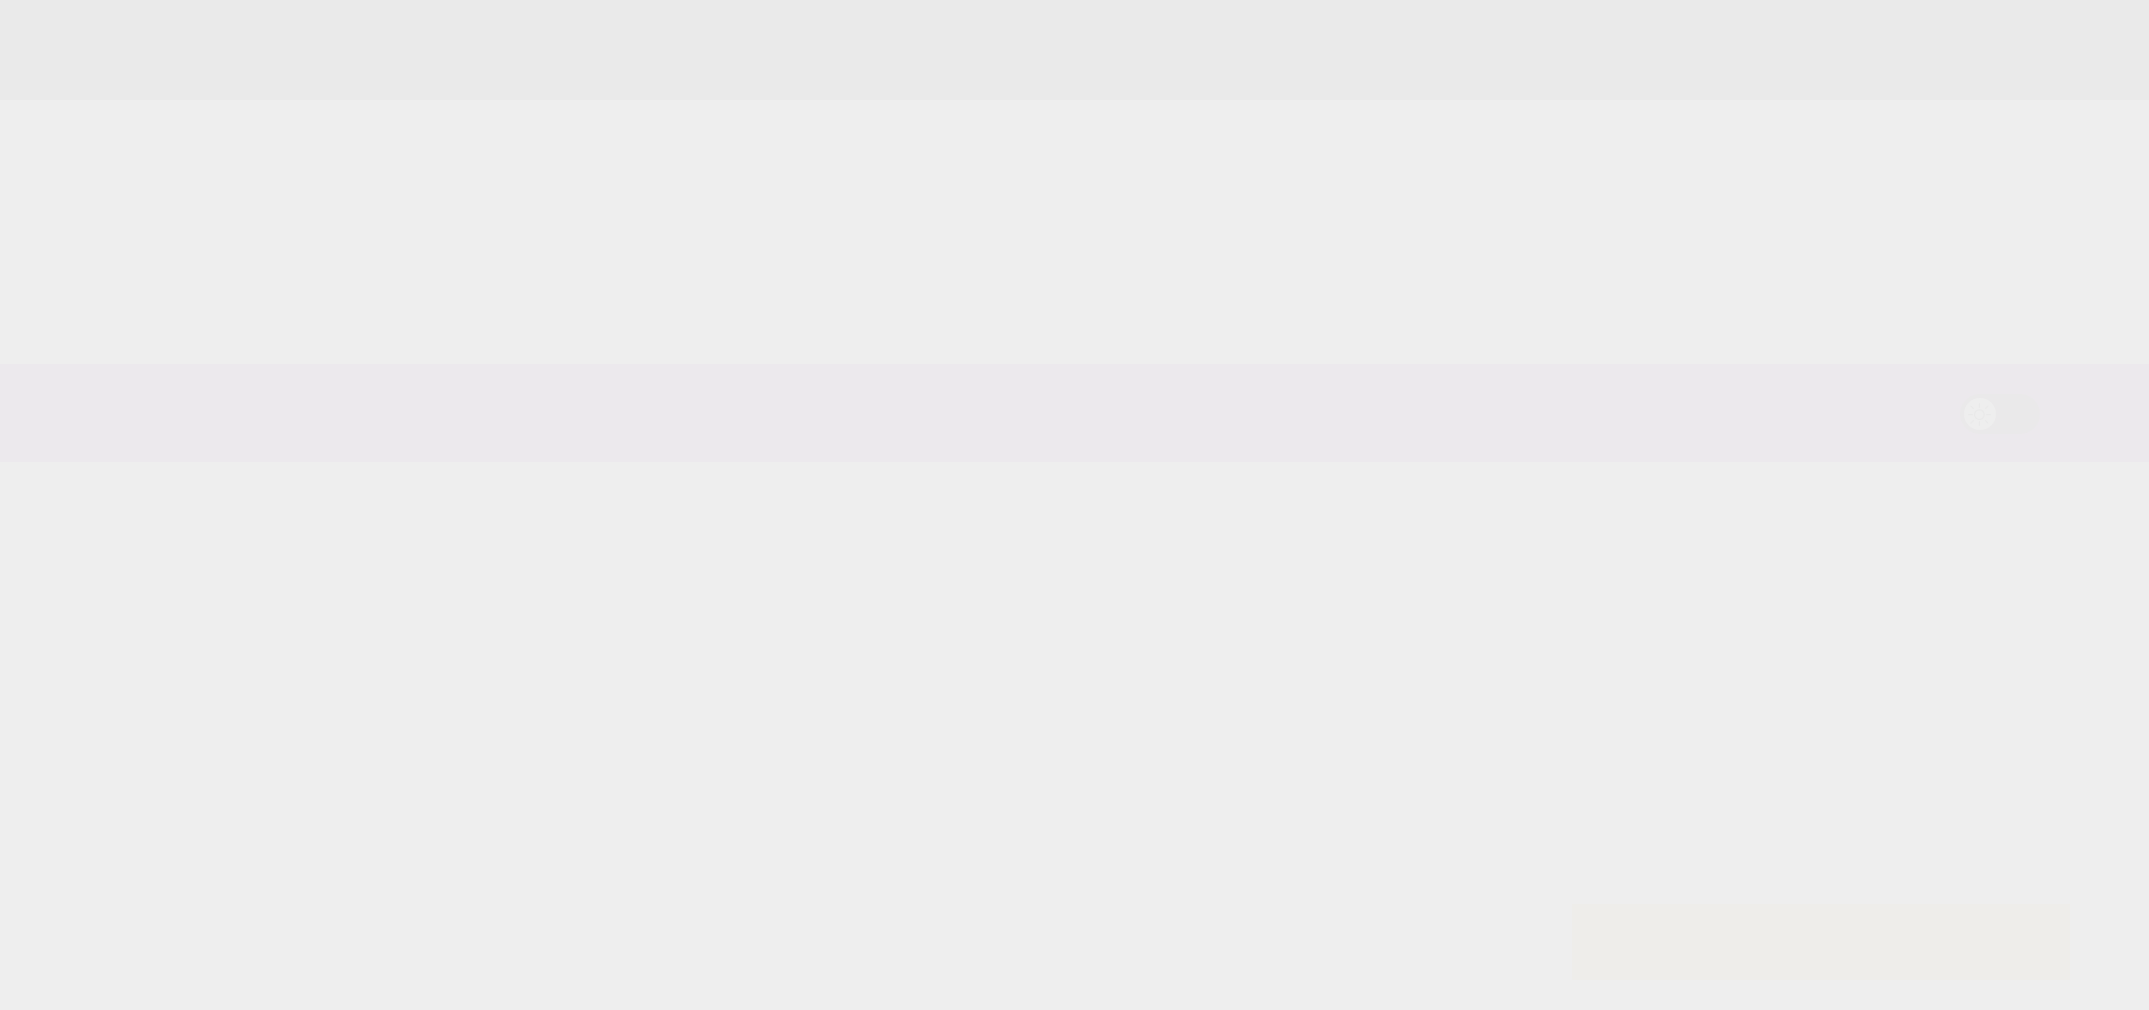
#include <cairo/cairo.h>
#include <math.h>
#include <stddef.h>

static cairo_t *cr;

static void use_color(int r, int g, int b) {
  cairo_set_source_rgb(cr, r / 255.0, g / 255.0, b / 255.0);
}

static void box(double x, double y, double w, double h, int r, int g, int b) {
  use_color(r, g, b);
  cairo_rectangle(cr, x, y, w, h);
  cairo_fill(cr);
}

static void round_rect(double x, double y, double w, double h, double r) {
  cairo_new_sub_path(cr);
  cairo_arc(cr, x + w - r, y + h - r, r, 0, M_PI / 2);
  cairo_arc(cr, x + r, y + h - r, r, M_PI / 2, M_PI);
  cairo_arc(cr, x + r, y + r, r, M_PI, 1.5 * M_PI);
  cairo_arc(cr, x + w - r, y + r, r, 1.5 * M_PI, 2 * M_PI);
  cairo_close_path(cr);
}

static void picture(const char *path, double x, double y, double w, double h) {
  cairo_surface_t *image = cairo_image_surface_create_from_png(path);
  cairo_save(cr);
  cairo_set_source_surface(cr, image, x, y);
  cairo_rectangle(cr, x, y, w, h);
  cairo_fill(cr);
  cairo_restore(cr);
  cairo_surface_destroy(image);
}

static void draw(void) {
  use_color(238, 238, 238);
  cairo_paint(cr);
  box(0, 0, 2149, 100, 234, 234, 234);
  box(0, 364, 2149, 98, 236, 233, 237);
  use_color(234, 233, 234);
  round_rect(1960, 394, 80, 40, 20);
  cairo_fill(cr);
  use_color(238, 238, 238);
  cairo_arc(cr, 1980, 414, 16, 0, 2 * M_PI);
  cairo_fill(cr);
  picture("img_01.png", 1968, 403, 23, 23);
  box(1572, 904, 498, 76, 238, 237, 234);
}

int main(void) {
  cairo_surface_t *surface = cairo_image_surface_create(CAIRO_FORMAT_RGB24, 2149, 1010);
  cr = cairo_create(surface);
  cairo_font_options_t *options = cairo_font_options_create();
  cairo_font_options_set_hint_metrics(options, CAIRO_HINT_METRICS_OFF);
  cairo_font_options_set_hint_style(options, CAIRO_HINT_STYLE_NONE);
  cairo_set_font_options(cr, options);
  cairo_set_miter_limit(cr, 4);
  draw();
  cairo_surface_write_to_png(surface, "out.png");
  cairo_font_options_destroy(options);
  cairo_destroy(cr);
  cairo_surface_destroy(surface);
  return 0;
}
